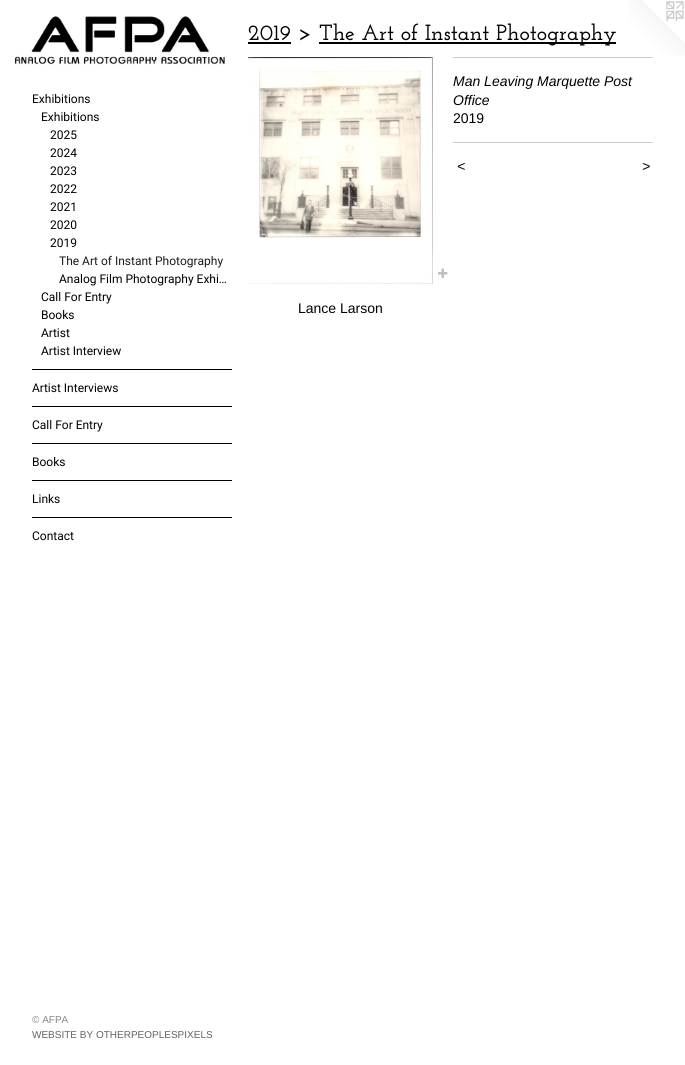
#include <cairo/cairo.h>
#include <math.h>
#include <stddef.h>

static cairo_t *cr;

static void use_color(int r, int g, int b) {
  cairo_set_source_rgb(cr, r / 255.0, g / 255.0, b / 255.0);
}

static void text(double x, double y, const char *s, const char *family, double size, int italic, int bold, int r, int g, int b) {
  cairo_select_font_face(cr, family, italic ? CAIRO_FONT_SLANT_ITALIC : CAIRO_FONT_SLANT_NORMAL,
    bold ? CAIRO_FONT_WEIGHT_BOLD : CAIRO_FONT_WEIGHT_NORMAL);
  cairo_set_font_size(cr, size);
  use_color(r, g, b);
  cairo_move_to(cr, x, y);
  cairo_show_text(cr, s);
}

static void spaced_text(double x, double y, const char *s, double letter, double word) {
  cairo_move_to(cr, x, y);
  while (*s) {
    char ch[5] = {0};
    int n = 0;
    do ch[n++] = *s++; while ((*s & 0xC0) == 0x80);
    cairo_show_text(cr, ch);
    cairo_rel_move_to(cr, letter + word * (*ch == ' '), 0);
  }
}

static void box(double x, double y, double w, double h, int r, int g, int b) {
  use_color(r, g, b);
  cairo_rectangle(cr, x, y, w, h);
  cairo_fill(cr);
}

static void picture(const char *path, double x, double y, double w, double h) {
  cairo_surface_t *image = cairo_image_surface_create_from_png(path);
  cairo_save(cr);
  cairo_set_source_surface(cr, image, x, y);
  cairo_rectangle(cr, x, y, w, h);
  cairo_fill(cr);
  cairo_restore(cr);
  cairo_surface_destroy(image);
}

static void draw(void) {
  use_color(255, 255, 255);
  cairo_paint(cr);
  picture("img_01.png", 15, 16, 210, 49);
  box(32, 369, 200, 1, 0, 0, 0);
  box(32, 406, 200, 1, 0, 0, 0);
  box(32, 443, 200, 1, 0, 0, 0);
  box(32, 480, 200, 1, 0, 0, 0);
  box(32, 517, 200, 1, 0, 0, 0);
  box(248, 42, 43, 2, 0, 0, 0);
  box(319, 42, 297, 2, 0, 0, 0);
  picture("img_02.png", 248, 57, 185, 227);
  picture("img_03.png", 438, 268, 10, 10);
  box(453, 57, 200, 1, 204, 204, 204);
  box(453, 142, 200, 1, 204, 204, 204);
  picture("img_04.png", 629, 0, 56, 56);
  text(32, 103, "Exhibitions", "Roboto", 12, 0, 0, 0, 0, 0);
  text(41, 121, "Exhibitions", "Roboto", 12, 0, 0, 0, 0, 0);
  text(50, 139, "2025", "Roboto", 12, 0, 0, 0, 0, 0);
  text(50, 157, "2024", "Roboto", 12, 0, 0, 0, 0, 0);
  text(50, 175, "2023", "Roboto", 12, 0, 0, 0, 0, 0);
  text(50, 193, "2022", "Roboto", 12, 0, 0, 0, 0, 0);
  text(50, 211, "2021", "Roboto", 12, 0, 0, 0, 0, 0);
  text(50, 229, "2020", "Roboto", 12, 0, 0, 0, 0, 0);
  text(50, 247, "2019", "Roboto", 12, 0, 0, 0, 0, 0);
  text(59, 265, "The Art of Instant Photography", "Roboto", 12, 0, 0, 26, 26, 26);
  text(59, 283, "Analog Film Photography Exhi…", "Roboto", 12, 0, 0, 0, 0, 0);
  text(41, 301, "Call For Entry", "Roboto", 12, 0, 0, 0, 0, 0);
  text(41, 319, "Books", "Roboto", 12, 0, 0, 0, 0, 0);
  text(41, 337, "Artist", "Roboto", 12, 0, 0, 0, 0, 0);
  text(41, 355, "Artist Interview", "Roboto", 12, 0, 0, 0, 0, 0);
  text(32, 392, "Artist Interviews", "Roboto", 12, 0, 0, 0, 0, 0);
  text(32, 429, "Call For Entry", "Roboto", 12, 0, 0, 0, 0, 0);
  text(32, 466, "Books", "Roboto", 12, 0, 0, 0, 0, 0);
  text(32, 503, "Links", "Roboto", 12, 0, 0, 0, 0, 0);
  text(32, 540, "Contact", "Roboto", 12, 0, 0, 0, 0, 0);
  text(32, 1023, "© AFPA", "Liberation Sans", 10, 0, 0, 133, 133, 133);
  text(32, 1038, "WEBSITE BY OTHERPEOPLESPIXELS", "Liberation Sans", 10, 0, 0, 99, 99, 99);
  text(248, 40, "2019 >", "Josefin Slab Thin", 22, 0, 0, 0, 0, 0);
  text(319, 40, "The Art of Instant Photography", "Josefin Slab Thin", 22, 0, 0, 0, 0, 0);
  text(453, 86, "Man Leaving Marquette Post", "Liberation Sans", 14, 1, 0, 0, 0, 0);
  text(453, 105, "Office", "Liberation Sans", 14, 1, 0, 0, 0, 0);
  text(453, 123, "2019", "Liberation Sans", 14, 0, 0, 0, 0, 0);
  cairo_select_font_face(cr, "Liberation Sans", CAIRO_FONT_SLANT_ITALIC, CAIRO_FONT_WEIGHT_NORMAL);
  spaced_text(457, 171, "<", 1, 0);
  spaced_text(642, 171, ">", 1, 0);
  text(298, 313, "Lance Larson", "Liberation Sans", 14, 0, 0, 0, 0, 0);
}

int main(void) {
  cairo_surface_t *surface = cairo_image_surface_create(CAIRO_FORMAT_RGB24, 685, 1065);
  cr = cairo_create(surface);
  cairo_font_options_t *options = cairo_font_options_create();
  cairo_font_options_set_hint_metrics(options, CAIRO_HINT_METRICS_OFF);
  cairo_font_options_set_hint_style(options, CAIRO_HINT_STYLE_NONE);
  cairo_set_font_options(cr, options);
  cairo_set_miter_limit(cr, 4);
  draw();
  cairo_surface_write_to_png(surface, "out.png");
  cairo_font_options_destroy(options);
  cairo_destroy(cr);
  cairo_surface_destroy(surface);
  return 0;
}
